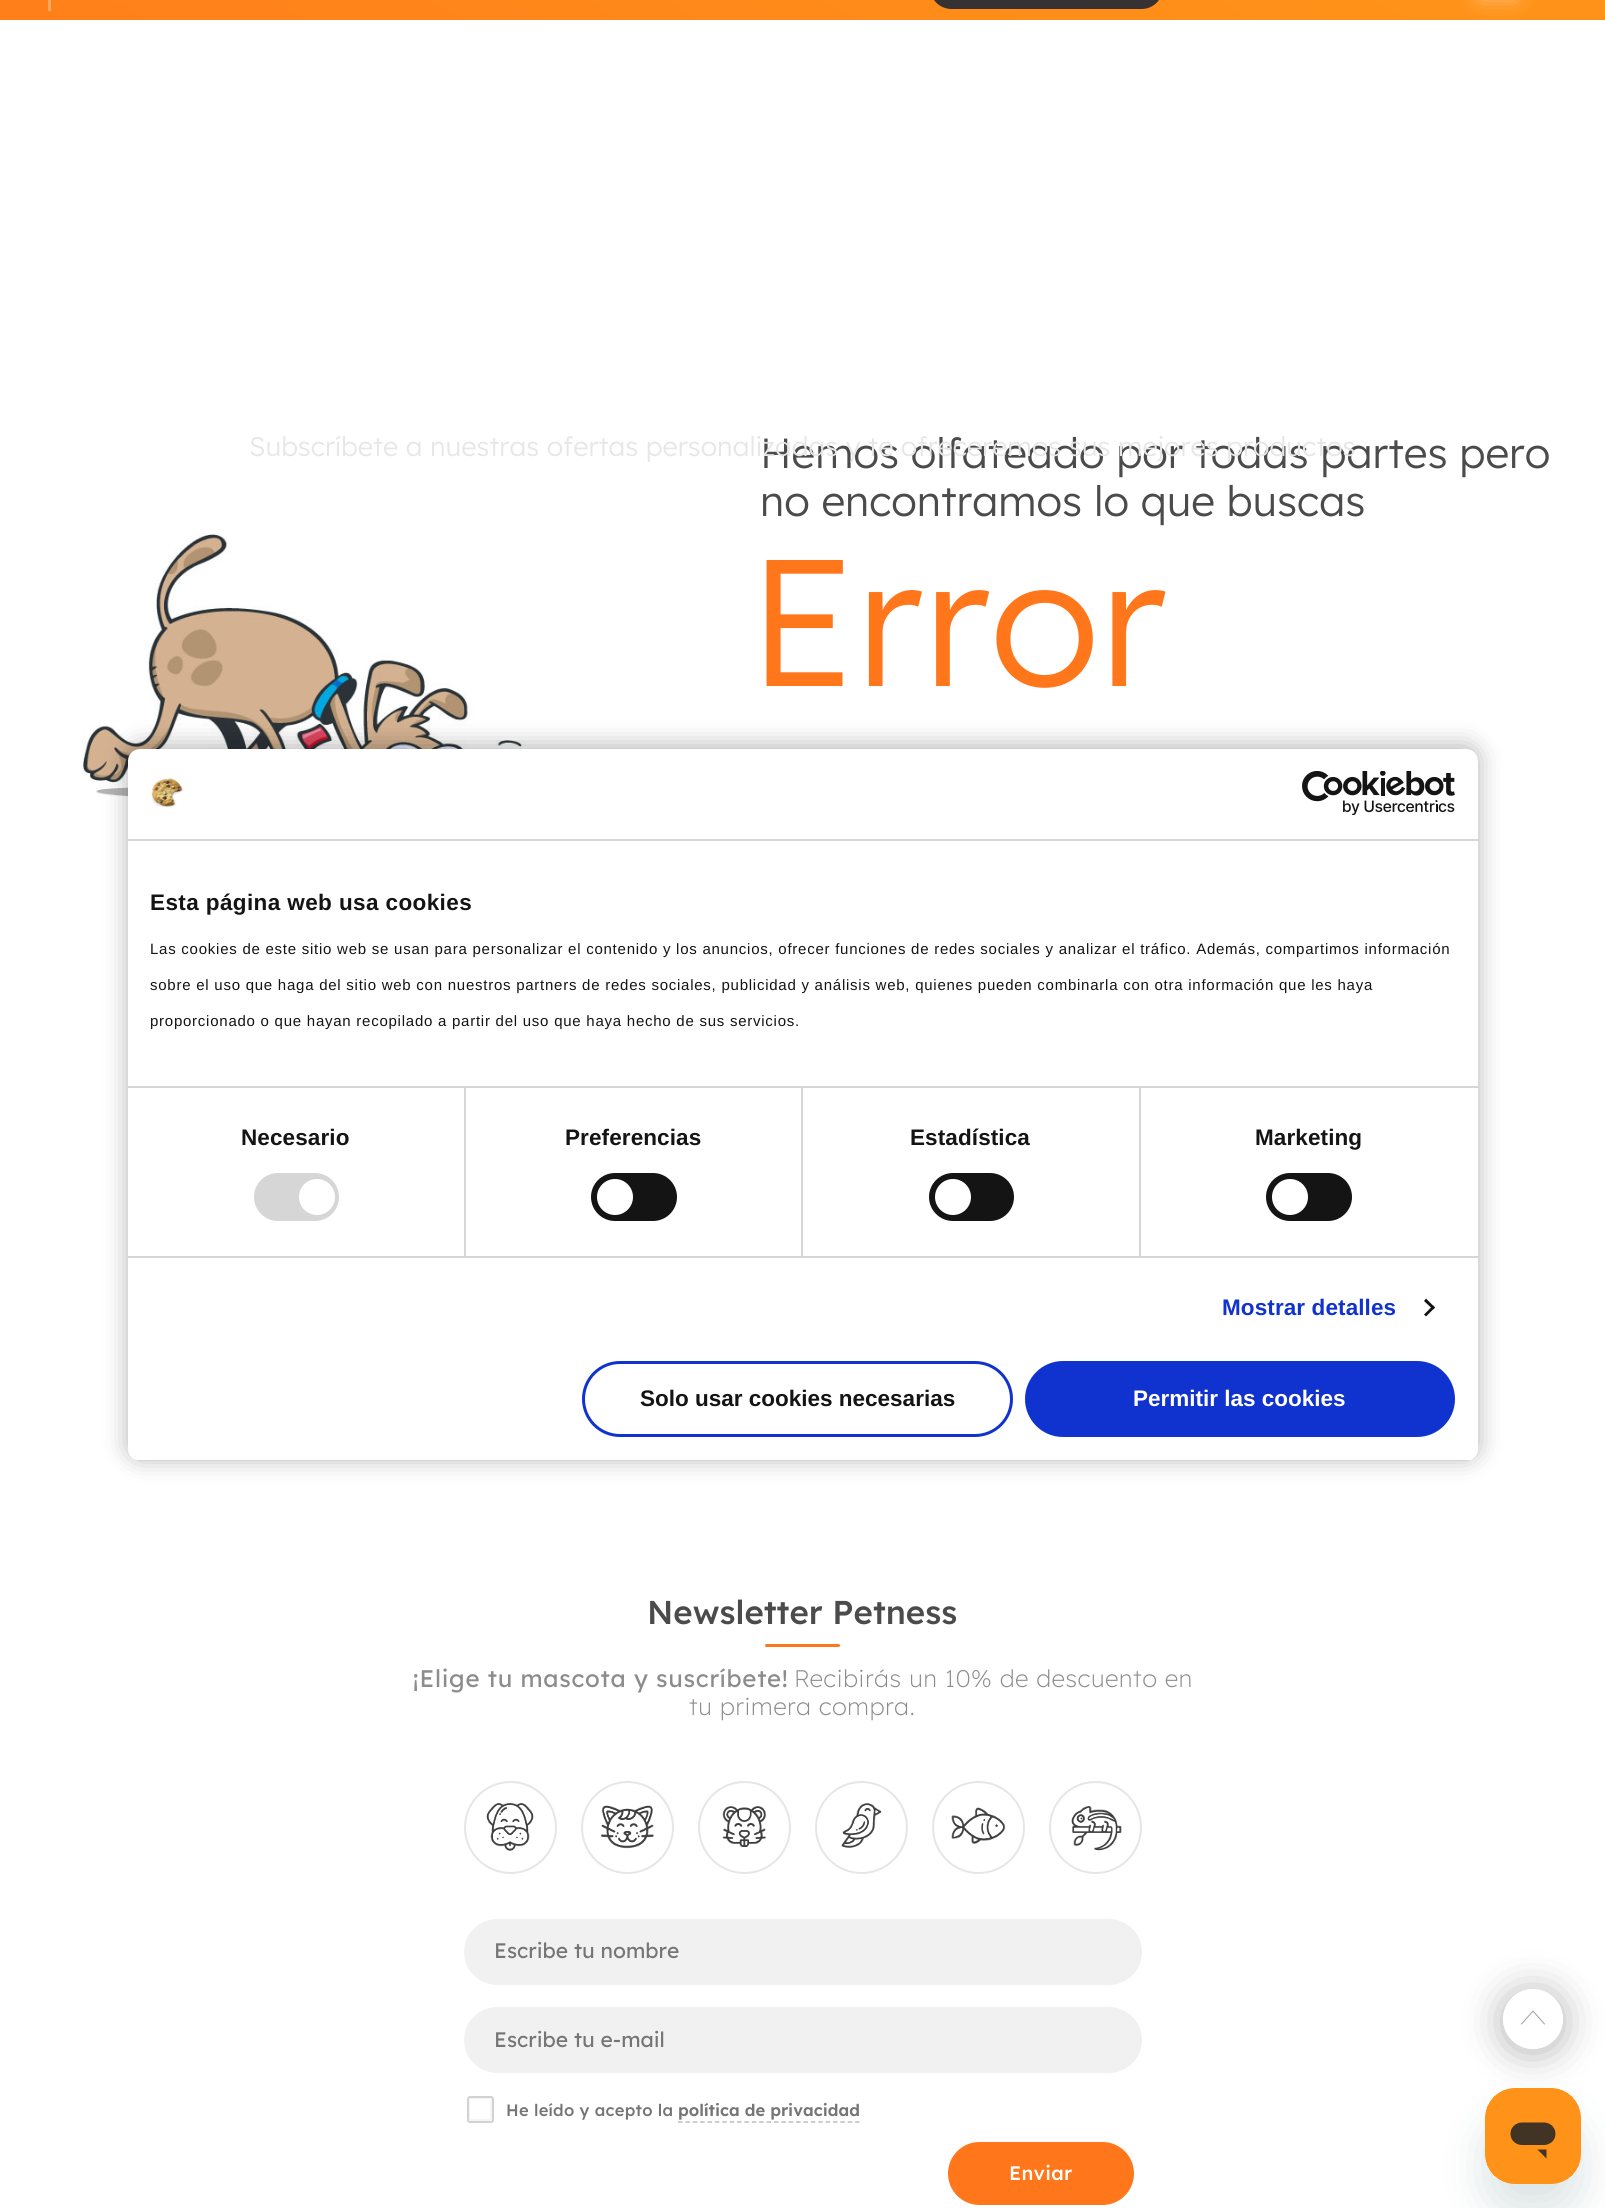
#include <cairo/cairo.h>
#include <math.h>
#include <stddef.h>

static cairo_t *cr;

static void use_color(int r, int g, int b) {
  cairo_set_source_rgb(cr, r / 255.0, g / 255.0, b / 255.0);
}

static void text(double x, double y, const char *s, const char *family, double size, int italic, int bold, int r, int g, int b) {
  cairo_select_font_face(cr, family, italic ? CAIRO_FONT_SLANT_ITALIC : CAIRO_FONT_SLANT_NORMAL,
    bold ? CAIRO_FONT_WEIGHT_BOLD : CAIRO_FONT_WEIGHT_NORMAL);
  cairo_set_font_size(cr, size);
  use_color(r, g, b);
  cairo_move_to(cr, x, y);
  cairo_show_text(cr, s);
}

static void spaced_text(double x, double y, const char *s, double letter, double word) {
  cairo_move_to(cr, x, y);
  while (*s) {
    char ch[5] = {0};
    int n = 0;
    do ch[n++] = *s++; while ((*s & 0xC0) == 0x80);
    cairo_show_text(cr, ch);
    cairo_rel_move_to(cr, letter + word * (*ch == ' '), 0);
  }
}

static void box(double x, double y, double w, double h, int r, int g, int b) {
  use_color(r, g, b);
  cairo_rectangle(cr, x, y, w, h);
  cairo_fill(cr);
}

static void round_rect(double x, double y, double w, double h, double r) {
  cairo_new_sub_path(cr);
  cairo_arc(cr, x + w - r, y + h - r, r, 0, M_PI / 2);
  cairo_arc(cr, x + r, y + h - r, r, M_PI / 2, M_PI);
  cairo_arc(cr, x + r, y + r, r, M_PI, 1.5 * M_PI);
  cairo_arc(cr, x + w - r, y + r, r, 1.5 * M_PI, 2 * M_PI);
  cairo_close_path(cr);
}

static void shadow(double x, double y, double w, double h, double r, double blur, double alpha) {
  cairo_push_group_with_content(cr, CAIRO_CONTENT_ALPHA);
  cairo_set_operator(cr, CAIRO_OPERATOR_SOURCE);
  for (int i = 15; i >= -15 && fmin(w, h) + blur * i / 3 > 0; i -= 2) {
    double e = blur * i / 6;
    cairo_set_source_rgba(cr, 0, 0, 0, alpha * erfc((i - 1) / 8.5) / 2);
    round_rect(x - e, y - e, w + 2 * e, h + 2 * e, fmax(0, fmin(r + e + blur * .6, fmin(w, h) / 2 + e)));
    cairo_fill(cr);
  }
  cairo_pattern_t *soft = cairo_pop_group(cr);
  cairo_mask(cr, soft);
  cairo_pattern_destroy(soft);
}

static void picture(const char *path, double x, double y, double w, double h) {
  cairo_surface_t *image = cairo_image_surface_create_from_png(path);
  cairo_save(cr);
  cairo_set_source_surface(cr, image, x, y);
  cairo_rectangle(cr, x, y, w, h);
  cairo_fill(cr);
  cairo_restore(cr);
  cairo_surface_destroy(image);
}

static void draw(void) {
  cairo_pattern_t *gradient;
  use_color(255, 255, 255);
  cairo_paint(cr);
  gradient = cairo_pattern_create_linear(1039, -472, 377, 674);
  cairo_pattern_add_color_stop_rgba(gradient, 0.14, 1, 0.576, 0.098, 1);
  cairo_pattern_add_color_stop_rgba(gradient, 1, 1, 0.463, 0.106, 1);
  cairo_set_source(cr, gradient);
  cairo_pattern_destroy(gradient);
  cairo_rectangle(cr, 0, 0, 1605, 20);
  cairo_fill(cr);
  box(48, 0, 3, 11, 255, 167, 95);
  use_color(255, 255, 255);
  shadow(1481, -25, 34, 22, 0, 10.5, 0.5);
  cairo_set_source_rgba(cr, 0.129, 0.153, 0.216, 0.9);
  round_rect(930, -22, 233, 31, 21.5);
  cairo_fill(cr);
  picture("img_01.png", 82, 533, 520, 300);
  use_color(255, 118, 27);
  round_rect(765, 1644, 75, 3, 1.5);
  cairo_fill(cr);
  cairo_arc(cr, 510.5, 1827.5, 45.5, 0, 2 * M_PI);
  use_color(230, 230, 230);
  cairo_stroke(cr);
  picture("img_02.png", 486, 1803, 48, 48);
  cairo_arc(cr, 627.5, 1827.5, 45.5, 0, 2 * M_PI);
  cairo_stroke(cr);
  picture("img_03.png", 600, 1805, 54, 44);
  cairo_arc(cr, 744.5, 1827.5, 45.5, 0, 2 * M_PI);
  cairo_stroke(cr);
  picture("img_04.png", 722, 1806, 44, 41);
  cairo_arc(cr, 861.5, 1827.5, 45.5, 0, 2 * M_PI);
  cairo_stroke(cr);
  picture("img_05.png", 841, 1803, 41, 45);
  cairo_arc(cr, 978.5, 1827.5, 45.5, 0, 2 * M_PI);
  cairo_stroke(cr);
  picture("img_06.png", 951, 1807, 55, 37);
  cairo_arc(cr, 1095.5, 1827.5, 45.5, 0, 2 * M_PI);
  cairo_stroke(cr);
  picture("img_07.png", 1071, 1806, 51, 45);
  use_color(241, 241, 241);
  round_rect(464, 1919, 678, 66, 33);
  cairo_fill(cr);
  round_rect(464, 2007, 678, 66, 33);
  cairo_fill(cr);
  round_rect(469, 2098, 22, 22, 0.5);
  use_color(245, 245, 245);
  cairo_stroke(cr);
  round_rect(468, 2097, 25, 25, 2);
  use_color(210, 210, 210);
  cairo_stroke(cr);
  cairo_new_path(cr);
  cairo_move_to(cr, 678, 2122);
  cairo_line_to(cr, 859.5, 2122);
  use_color(189, 189, 189);
  cairo_set_line_width(cr, 1.5);
  cairo_set_dash(cr, (double[]){4.5, 2.88}, 2, 0);
  cairo_stroke(cr);
  use_color(255, 118, 27);
  round_rect(949, 2143, 184, 61, 30.5);
  cairo_fill_preserve(cr);
  cairo_set_line_width(cr, 2);
  cairo_set_dash(cr, NULL, 0, 0);
  cairo_stroke(cr);
  use_color(0, 0, 0);
  shadow(128, 746, 1350, 712, 12, 12, 0.3);
  use_color(255, 255, 255);
  round_rect(128, 749, 1350, 712, 12);
  cairo_fill(cr);
  box(128, 839, 1350, 2, 214, 214, 214);
  picture("img_08.png", 151, 778, 33, 30);
  picture("img_09.png", 1302, 771, 153, 45);
  box(128, 1086, 1350, 2, 214, 214, 214);
  box(128, 1256, 1350, 2, 214, 214, 214);
  box(464, 1088, 2, 168, 214, 214, 214);
  round_rect(254, 1173, 85, 48, 24);
  cairo_fill(cr);
  use_color(255, 255, 255);
  cairo_arc(cr, 317, 1197, 18, 0, 2 * M_PI);
  cairo_fill(cr);
  box(801, 1088, 2, 168, 214, 214, 214);
  use_color(20, 20, 20);
  round_rect(591, 1173, 86, 48, 24);
  cairo_fill(cr);
  use_color(255, 255, 255);
  cairo_arc(cr, 615, 1197, 18, 0, 2 * M_PI);
  cairo_fill(cr);
  box(1139, 1088, 2, 168, 214, 214, 214);
  use_color(20, 20, 20);
  round_rect(929, 1173, 85, 48, 24);
  cairo_fill(cr);
  use_color(255, 255, 255);
  cairo_arc(cr, 953, 1197, 18, 0, 2 * M_PI);
  cairo_fill(cr);
  use_color(20, 20, 20);
  round_rect(1266, 1173, 86, 48, 24);
  cairo_fill(cr);
  use_color(255, 255, 255);
  cairo_arc(cr, 1290, 1197, 18, 0, 2 * M_PI);
  cairo_fill(cr);
  use_color(20, 20, 20);
  cairo_new_path(cr);
  cairo_move_to(cr, 1426, 1298.5);
  cairo_line_to(cr, 1435, 1307.5);
  cairo_line_to(cr, 1433, 1309.5);
  cairo_line_to(cr, 1424, 1301);
  cairo_close_path(cr);
  cairo_fill(cr);
  cairo_new_path(cr);
  cairo_move_to(cr, 1433, 1305.5);
  cairo_line_to(cr, 1435, 1307.5);
  cairo_line_to(cr, 1426, 1316.5);
  cairo_line_to(cr, 1424, 1314.5);
  cairo_close_path(cr);
  cairo_fill(cr);
  cairo_save(cr);
  round_rect(128, 749, 1350, 712, 12);
  cairo_clip(cr);
  box(128, 1460, 1350, 1, 214, 214, 214);
  cairo_restore(cr);
  round_rect(583.5, 1362.5, 428, 73, 36.5);
  use_color(16, 50, 207);
  cairo_set_line_width(cr, 3);
  cairo_stroke(cr);
  round_rect(1026.5, 1362.5, 427, 73, 36.5);
  cairo_fill_preserve(cr);
  cairo_stroke(cr);
  cairo_save(cr);
  cairo_set_fill_rule(cr, CAIRO_FILL_RULE_EVEN_ODD);
  cairo_new_path(cr);
  cairo_move_to(cr, 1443, 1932);
  cairo_line_to(cr, 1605, 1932);
  cairo_line_to(cr, 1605, 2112);
  cairo_line_to(cr, 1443, 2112);
  cairo_close_path(cr);
  cairo_move_to(cr, 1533, 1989);
  cairo_curve_to(cr, 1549.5, 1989, 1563, 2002.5, 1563, 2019);
  cairo_curve_to(cr, 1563, 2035.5, 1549.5, 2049, 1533, 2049);
  cairo_curve_to(cr, 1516.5, 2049, 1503, 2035.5, 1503, 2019);
  cairo_curve_to(cr, 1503, 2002.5, 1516.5, 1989, 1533, 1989);
  cairo_close_path(cr);
  cairo_clip(cr);
  use_color(0, 0, 0);
  shadow(1503, 1992, 60, 60, 30, 19.5, 0.3);
  cairo_restore(cr);
  cairo_set_source_rgba(cr, 1, 1, 1, 0.4);
  cairo_arc(cr, 1533, 2019, 30, 0, 2 * M_PI);
  cairo_fill(cr);
  picture("img_10.png", 1521, 2010, 24, 15);
  use_color(23, 73, 77);
  shadow(1485, 2118, 96, 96, 30, 22.5, 0.15);
  picture("img_11.png", 1485, 2088, 96, 96);
  text(760, 468, "Hemos olfateado por todas partes pero", "Lexend Deca Light", 42, 0, 0, 75, 75, 75);
  text(249, 456, "Subscríbete a nuestras ofertas personalizadas y te ofreceremos sus mejores productos", "Lexend Deca Light", 27, 0, 0, 231, 231, 231);
  text(760, 516, "no encontramos lo que buscas", "Lexend Deca Light", 42, 0, 0, 75, 75, 75);
  text(748, 686, "Error", "Lexend Deca Light", 180, 0, 0, 255, 118, 27);
  text(647, 1624, "Newsletter Petness", "Lexend Deca Medium", 33, 0, 0, 75, 75, 75);
  cairo_select_font_face(cr, "Lexend Deca", CAIRO_FONT_SLANT_NORMAL, CAIRO_FONT_WEIGHT_NORMAL);
  cairo_set_font_size(cr, 24);
  use_color(140, 140, 140);
  spaced_text(413, 1687, "¡Elige tu mascota y suscríbete!", 0.75, 0);
  cairo_select_font_face(cr, "Lexend Deca ExtraLight", CAIRO_FONT_SLANT_NORMAL, CAIRO_FONT_WEIGHT_NORMAL);
  spaced_text(794, 1687, "Recibirás un 10% de descuento en", 0.75, 0);
  spaced_text(689, 1715, "tu primera compra.", 0.75, 0);
  text(494, 1958, "Escribe tu nombre", "Lexend Deca", 21, 0, 0, 117, 117, 117);
  text(494, 2047, "Escribe tu e-mail", "Lexend Deca", 21, 0, 0, 117, 117, 117);
  cairo_select_font_face(cr, "Lexend Deca Medium", CAIRO_FONT_SLANT_NORMAL, CAIRO_FONT_WEIGHT_NORMAL);
  cairo_set_font_size(cr, 16.5);
  spaced_text(506, 2116, "He leído y acepto la", 0.25, 0);
  text(678, 2116, "política de privacidad", "Lexend Deca SemiBold", 16.5, 0, 0, 117, 117, 117);
  cairo_select_font_face(cr, "Lexend Deca Medium", CAIRO_FONT_SLANT_NORMAL, CAIRO_FONT_WEIGHT_NORMAL);
  cairo_set_font_size(cr, 19.5);
  use_color(255, 255, 255);
  spaced_text(1009, 2180, "Enviar", 0.25, 0);
  cairo_select_font_face(cr, "Liberation Sans", CAIRO_FONT_SLANT_NORMAL, CAIRO_FONT_WEIGHT_BOLD);
  cairo_set_font_size(cr, 22.5);
  use_color(20, 20, 20);
  spaced_text(150, 910, "Esta página web usa cookies", 0.4, 0);
  cairo_select_font_face(cr, "Liberation Sans", CAIRO_FONT_SLANT_NORMAL, CAIRO_FONT_WEIGHT_NORMAL);
  cairo_set_font_size(cr, 15);
  spaced_text(150, 954, "Las cookies de este sitio web se usan para personalizar el contenido y los anuncios, ofrecer funciones de redes sociales y analizar el tráfico. Además, compartimos información", 0.75, 0);
  spaced_text(150, 990, "sobre el uso que haga del sitio web con nuestros partners de redes sociales, publicidad y análisis web, quienes pueden combinarla con otra información que les haya", 0.75, 0);
  spaced_text(150, 1026, "proporcionado o que hayan recopilado a partir del uso que haya hecho de sus servicios.", 0.75, 0);
  cairo_select_font_face(cr, "Liberation Sans", CAIRO_FONT_SLANT_NORMAL, CAIRO_FONT_WEIGHT_BOLD);
  cairo_set_font_size(cr, 22.5);
  spaced_text(241, 1145, "Necesario", 0.1, 0);
  spaced_text(565, 1145, "Preferencias", 0.1, 0);
  spaced_text(910, 1145, "Estadística", 0.1, 0);
  spaced_text(1255, 1145, "Marketing", 0.1, 0);
  use_color(16, 50, 207);
  spaced_text(1222, 1315, "Mostrar detalles", 0.1, 0);
  text(640, 1406, "Solo usar cookies necesarias", "Liberation Sans", 22.5, 0, 1, 20, 20, 20);
  text(1133, 1406, "Permitir las cookies", "Liberation Sans", 22.5, 0, 1, 255, 255, 255);
}

int main(void) {
  cairo_surface_t *surface = cairo_image_surface_create(CAIRO_FORMAT_RGB24, 1605, 2208);
  cr = cairo_create(surface);
  cairo_font_options_t *options = cairo_font_options_create();
  cairo_font_options_set_hint_metrics(options, CAIRO_HINT_METRICS_OFF);
  cairo_font_options_set_hint_style(options, CAIRO_HINT_STYLE_NONE);
  cairo_set_font_options(cr, options);
  cairo_set_miter_limit(cr, 4);
  draw();
  cairo_surface_write_to_png(surface, "out.png");
  cairo_font_options_destroy(options);
  cairo_destroy(cr);
  cairo_surface_destroy(surface);
  return 0;
}
